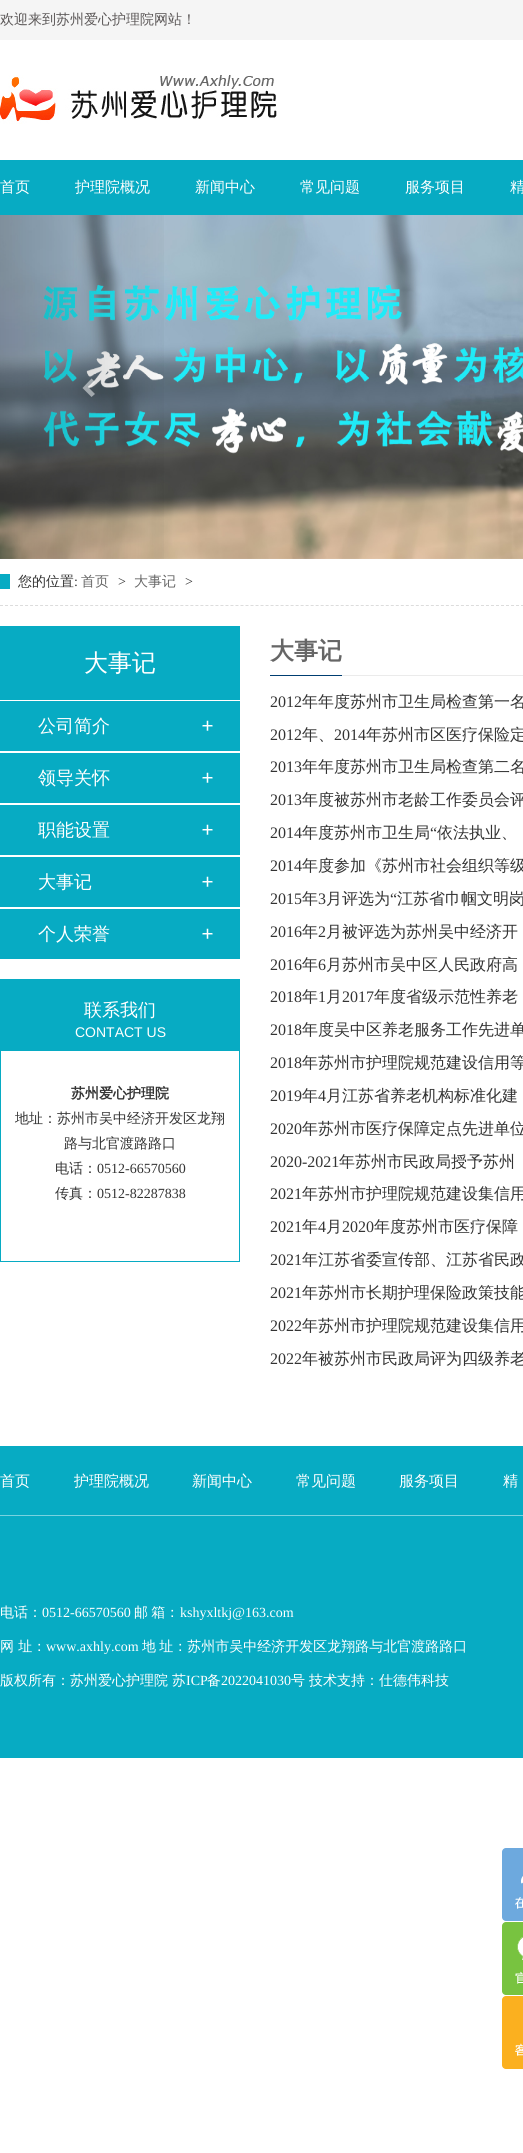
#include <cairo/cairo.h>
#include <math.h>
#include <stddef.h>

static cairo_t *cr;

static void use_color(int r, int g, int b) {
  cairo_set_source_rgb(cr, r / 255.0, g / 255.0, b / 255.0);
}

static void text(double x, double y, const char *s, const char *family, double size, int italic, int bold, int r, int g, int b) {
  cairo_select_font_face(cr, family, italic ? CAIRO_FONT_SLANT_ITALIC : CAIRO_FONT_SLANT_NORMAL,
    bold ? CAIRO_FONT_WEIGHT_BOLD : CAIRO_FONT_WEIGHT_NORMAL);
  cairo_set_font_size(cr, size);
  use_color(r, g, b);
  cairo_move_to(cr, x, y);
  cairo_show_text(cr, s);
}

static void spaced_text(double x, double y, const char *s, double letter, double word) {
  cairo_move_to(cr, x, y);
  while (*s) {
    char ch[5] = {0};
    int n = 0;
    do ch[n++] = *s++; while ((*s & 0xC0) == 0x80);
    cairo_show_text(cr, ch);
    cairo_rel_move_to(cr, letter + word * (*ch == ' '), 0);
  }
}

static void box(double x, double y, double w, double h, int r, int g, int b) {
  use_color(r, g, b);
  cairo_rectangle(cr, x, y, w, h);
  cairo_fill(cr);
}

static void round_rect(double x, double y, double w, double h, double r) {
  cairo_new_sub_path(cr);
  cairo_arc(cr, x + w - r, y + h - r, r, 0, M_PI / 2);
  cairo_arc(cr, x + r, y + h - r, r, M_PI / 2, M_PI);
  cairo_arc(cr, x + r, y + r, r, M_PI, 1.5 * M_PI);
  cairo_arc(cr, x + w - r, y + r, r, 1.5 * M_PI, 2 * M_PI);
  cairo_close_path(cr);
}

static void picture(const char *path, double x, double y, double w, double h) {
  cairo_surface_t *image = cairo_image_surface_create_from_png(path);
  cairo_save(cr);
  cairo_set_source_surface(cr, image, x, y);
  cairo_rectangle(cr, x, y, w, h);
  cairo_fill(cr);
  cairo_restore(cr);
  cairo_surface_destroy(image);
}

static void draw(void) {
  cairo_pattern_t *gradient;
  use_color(255, 255, 255);
  cairo_paint(cr);
  box(0, 0, 523, 40, 245, 245, 245);
  picture("img_01.png", 0, 75, 277, 49);
  box(0, 160, 523, 55, 7, 171, 195);
  picture("img_02.png", 0, 215, 523, 344);
  gradient = cairo_pattern_create_linear(0, 387, 180, 387);
  cairo_pattern_add_color_stop_rgba(gradient, 0, 0, 0, 0, 0.25);
  cairo_pattern_add_color_stop_rgba(gradient, 1, 0, 0, 0, 0);
  cairo_set_source(cr, gradient);
  cairo_pattern_destroy(gradient);
  cairo_rectangle(cr, 0, 215, 164, 344);
  cairo_fill(cr);
  cairo_set_source_rgba(cr, 1, 1, 1, 0.5);
  cairo_new_path(cr);
  cairo_move_to(cr, 95, 382);
  cairo_line_to(cr, 89, 388);
  cairo_line_to(cr, 95, 394);
  cairo_line_to(cr, 91.5, 397);
  cairo_line_to(cr, 82.5, 388);
  cairo_line_to(cr, 91.5, 378.5);
  cairo_close_path(cr);
  cairo_fill(cr);
  cairo_new_path(cr);
  cairo_move_to(cr, 0, 605.5);
  cairo_line_to(cr, 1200, 605.5);
  use_color(220, 220, 220);
  cairo_set_line_width(cr, 1);
  cairo_set_dash(cr, (double[]){3, 2.01}, 2, 0);
  cairo_stroke(cr);
  box(0, 574, 10, 15, 7, 171, 195);
  box(0, 626, 240, 74, 7, 171, 195);
  box(0, 701, 240, 50, 7, 171, 195);
  picture("img_03.png", 202, 720, 11, 11);
  box(0, 753, 240, 50, 7, 171, 195);
  picture("img_03.png", 202, 772, 11, 11);
  box(0, 805, 240, 50, 7, 171, 195);
  picture("img_03.png", 202, 824, 11, 11);
  box(0, 857, 240, 50, 7, 171, 195);
  picture("img_03.png", 202, 876, 11, 11);
  box(0, 909, 240, 50, 7, 171, 195);
  picture("img_03.png", 202, 928, 11, 11);
  cairo_rectangle(cr, 0.5, 979.5, 239, 282);
  cairo_set_dash(cr, NULL, 0, 0);
  cairo_stroke(cr);
  box(1, 980, 238, 71, 7, 171, 195);
  box(342, 675, 181, 1, 235, 235, 235);
  box(270, 675, 72, 1, 0, 62, 113);
  box(0, 1446, 523, 312, 7, 171, 195);
  box(0, 1515, 523, 1, 121, 210, 223);
  use_color(109, 169, 222);
  round_rect(502, 1848, 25, 73, 4);
  cairo_fill(cr);
  picture("img_04.png", 515, 1876, 8, 33);
  use_color(120, 195, 64);
  round_rect(502, 1922, 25, 73, 4);
  cairo_fill(cr);
  picture("img_05.png", 515, 1937, 8, 47);
  use_color(251, 176, 31);
  round_rect(502, 1996, 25, 73, 4);
  cairo_fill(cr);
  picture("img_06.png", 515, 2043, 8, 13);
  text(0, 24, "欢迎来到苏州爱心护理院网站！", "WenQuanYi Zen Hei Medium", 14, 0, 0, 91, 87, 87);
  text(0, 192, "首页", "WenQuanYi Zen Hei Medium", 15, 0, 0, 255, 255, 255);
  text(75, 192, "护理院概况", "WenQuanYi Zen Hei Medium", 15, 0, 0, 255, 255, 255);
  text(195, 192, "新闻中心", "WenQuanYi Zen Hei Medium", 15, 0, 0, 255, 255, 255);
  text(300, 192, "常见问题", "WenQuanYi Zen Hei Medium", 15, 0, 0, 255, 255, 255);
  text(405, 192, "服务项目", "WenQuanYi Zen Hei Medium", 15, 0, 0, 255, 255, 255);
  text(510, 192, "精", "WenQuanYi Zen Hei Medium", 15, 0, 0, 255, 255, 255);
  text(18, 586, "您的位置", "WenQuanYi Zen Hei Medium", 14, 0, 0, 51, 51, 51);
  text(74, 586, ":", "Liberation Serif", 14, 0, 0, 51, 51, 51);
  text(81, 586, "首页", "WenQuanYi Zen Hei Medium", 14, 0, 0, 102, 102, 102);
  text(118, 586, ">", "Liberation Serif", 14, 0, 0, 51, 51, 51);
  text(134, 586, "大事记", "WenQuanYi Zen Hei Medium", 14, 0, 0, 102, 102, 102);
  text(185, 586, ">", "Liberation Serif", 14, 0, 0, 51, 51, 51);
  text(84, 671, "大事记", "WenQuanYi Zen Hei Medium", 24, 0, 0, 255, 255, 255);
  text(38, 732, "公司简介", "WenQuanYi Zen Hei Medium", 18, 0, 0, 255, 255, 255);
  text(38, 784, "领导关怀", "WenQuanYi Zen Hei Medium", 18, 0, 0, 255, 255, 255);
  text(38, 836, "职能设置", "WenQuanYi Zen Hei Medium", 18, 0, 0, 255, 255, 255);
  text(38, 888, "大事记", "WenQuanYi Zen Hei Medium", 18, 0, 0, 255, 255, 255);
  text(38, 940, "个人荣誉", "WenQuanYi Zen Hei Medium", 18, 0, 0, 255, 255, 255);
  text(84, 1016, "联系我们", "WenQuanYi Zen Hei Medium", 18, 0, 0, 255, 255, 255);
  text(75, 1037, "CONTACT US", "Liberation Sans", 14, 0, 0, 255, 255, 255);
  text(71, 1098, "苏州爱心护理院", "WenQuanYi Zen Hei", 14, 0, 1, 51, 51, 51);
  text(15, 1123, "地址：苏州市吴中经济开发区龙翔", "WenQuanYi Zen Hei Medium", 14, 0, 0, 51, 51, 51);
  text(64, 1148, "路与北官渡路路口", "WenQuanYi Zen Hei Medium", 14, 0, 0, 51, 51, 51);
  text(55, 1173, "电话：", "WenQuanYi Zen Hei Medium", 14, 0, 0, 51, 51, 51);
  text(97, 1173, "0512-66570560", "Liberation Serif", 14, 0, 0, 51, 51, 51);
  text(55, 1198, "传真：", "WenQuanYi Zen Hei Medium", 14, 0, 0, 51, 51, 51);
  text(97, 1198, "0512-82287838", "Liberation Serif", 14, 0, 0, 51, 51, 51);
  text(270, 659, "大事记", "WenQuanYi Zen Hei", 24, 0, 1, 102, 102, 102);
  text(270, 707, "2012", "Liberation Serif", 16, 0, 0, 51, 51, 51);
  text(302, 707, "年年度苏州市卫生局检查第一名", "WenQuanYi Zen Hei Medium", 16, 0, 0, 51, 51, 51);
  text(270, 740, "2012", "Liberation Serif", 16, 0, 0, 51, 51, 51);
  text(302, 740, "年、", "WenQuanYi Zen Hei Medium", 16, 0, 0, 51, 51, 51);
  text(334, 740, "2014", "Liberation Serif", 16, 0, 0, 51, 51, 51);
  text(366, 740, "年苏州市区医疗保险定", "WenQuanYi Zen Hei Medium", 16, 0, 0, 51, 51, 51);
  text(270, 772, "2013", "Liberation Serif", 16, 0, 0, 51, 51, 51);
  text(302, 772, "年年度苏州市卫生局检查第二名", "WenQuanYi Zen Hei Medium", 16, 0, 0, 51, 51, 51);
  text(270, 805, "2013", "Liberation Serif", 16, 0, 0, 51, 51, 51);
  text(302, 805, "年度被苏州市老龄工作委员会评", "WenQuanYi Zen Hei Medium", 16, 0, 0, 51, 51, 51);
  text(270, 838, "2014", "Liberation Serif", 16, 0, 0, 51, 51, 51);
  text(302, 838, "年度苏州市卫生局", "WenQuanYi Zen Hei Medium", 16, 0, 0, 51, 51, 51);
  text(430, 838, "“", "Liberation Serif", 16, 0, 0, 51, 51, 51);
  text(437, 838, "依法执业、", "WenQuanYi Zen Hei Medium", 16, 0, 0, 51, 51, 51);
  text(270, 871, "2014", "Liberation Serif", 16, 0, 0, 51, 51, 51);
  text(302, 871, "年度参加《苏州市社会组织等级", "WenQuanYi Zen Hei Medium", 16, 0, 0, 51, 51, 51);
  text(270, 904, "2015", "Liberation Serif", 16, 0, 0, 51, 51, 51);
  text(302, 904, "年", "WenQuanYi Zen Hei Medium", 16, 0, 0, 51, 51, 51);
  text(318, 904, "3", "Liberation Serif", 16, 0, 0, 51, 51, 51);
  text(326, 904, "月评选为", "WenQuanYi Zen Hei Medium", 16, 0, 0, 51, 51, 51);
  text(390, 904, "“", "Liberation Serif", 16, 0, 0, 51, 51, 51);
  text(397, 904, "江苏省巾帼文明岗", "WenQuanYi Zen Hei Medium", 16, 0, 0, 51, 51, 51);
  text(270, 937, "2016", "Liberation Serif", 16, 0, 0, 51, 51, 51);
  text(302, 937, "年", "WenQuanYi Zen Hei Medium", 16, 0, 0, 51, 51, 51);
  text(318, 937, "2", "Liberation Serif", 16, 0, 0, 51, 51, 51);
  text(326, 937, "月被评选为苏州吴中经济开", "WenQuanYi Zen Hei Medium", 16, 0, 0, 51, 51, 51);
  text(270, 970, "2016", "Liberation Serif", 16, 0, 0, 51, 51, 51);
  text(302, 970, "年", "WenQuanYi Zen Hei Medium", 16, 0, 0, 51, 51, 51);
  text(318, 970, "6", "Liberation Serif", 16, 0, 0, 51, 51, 51);
  text(326, 970, "月苏州市吴中区人民政府高", "WenQuanYi Zen Hei Medium", 16, 0, 0, 51, 51, 51);
  text(270, 1002, "2018", "Liberation Serif", 16, 0, 0, 51, 51, 51);
  text(302, 1002, "年", "WenQuanYi Zen Hei Medium", 16, 0, 0, 51, 51, 51);
  text(318, 1002, "1", "Liberation Serif", 16, 0, 0, 51, 51, 51);
  text(326, 1002, "月", "WenQuanYi Zen Hei Medium", 16, 0, 0, 51, 51, 51);
  text(342, 1002, "2017", "Liberation Serif", 16, 0, 0, 51, 51, 51);
  text(374, 1002, "年度省级示范性养老", "WenQuanYi Zen Hei Medium", 16, 0, 0, 51, 51, 51);
  text(270, 1035, "2018", "Liberation Serif", 16, 0, 0, 51, 51, 51);
  text(302, 1035, "年度吴中区养老服务工作先进单", "WenQuanYi Zen Hei Medium", 16, 0, 0, 51, 51, 51);
  text(270, 1068, "2018", "Liberation Serif", 16, 0, 0, 51, 51, 51);
  text(302, 1068, "年苏州市护理院规范建设信用等", "WenQuanYi Zen Hei Medium", 16, 0, 0, 51, 51, 51);
  text(270, 1101, "2019", "Liberation Serif", 16, 0, 0, 51, 51, 51);
  text(302, 1101, "年", "WenQuanYi Zen Hei Medium", 16, 0, 0, 51, 51, 51);
  text(318, 1101, "4", "Liberation Serif", 16, 0, 0, 51, 51, 51);
  text(326, 1101, "月江苏省养老机构标准化建", "WenQuanYi Zen Hei Medium", 16, 0, 0, 51, 51, 51);
  text(270, 1134, "2020", "Liberation Serif", 16, 0, 0, 51, 51, 51);
  text(302, 1134, "年苏州市医疗保障定点先进单位", "WenQuanYi Zen Hei Medium", 16, 0, 0, 51, 51, 51);
  text(270, 1167, "2020-2021", "Liberation Serif", 16, 0, 0, 51, 51, 51);
  text(339, 1167, "年苏州市民政局授予苏州", "WenQuanYi Zen Hei Medium", 16, 0, 0, 51, 51, 51);
  text(270, 1199, "2021", "Liberation Serif", 16, 0, 0, 51, 51, 51);
  text(302, 1199, "年苏州市护理院规范建设集信用", "WenQuanYi Zen Hei Medium", 16, 0, 0, 51, 51, 51);
  text(270, 1232, "2021", "Liberation Serif", 16, 0, 0, 51, 51, 51);
  text(302, 1232, "年", "WenQuanYi Zen Hei Medium", 16, 0, 0, 51, 51, 51);
  text(318, 1232, "4", "Liberation Serif", 16, 0, 0, 51, 51, 51);
  text(326, 1232, "月", "WenQuanYi Zen Hei Medium", 16, 0, 0, 51, 51, 51);
  text(342, 1232, "2020", "Liberation Serif", 16, 0, 0, 51, 51, 51);
  text(374, 1232, "年度苏州市医疗保障", "WenQuanYi Zen Hei Medium", 16, 0, 0, 51, 51, 51);
  text(270, 1265, "2021", "Liberation Serif", 16, 0, 0, 51, 51, 51);
  text(302, 1265, "年江苏省委宣传部、江苏省民政", "WenQuanYi Zen Hei Medium", 16, 0, 0, 51, 51, 51);
  text(270, 1298, "2021", "Liberation Serif", 16, 0, 0, 51, 51, 51);
  text(302, 1298, "年苏州市长期护理保险政策技能", "WenQuanYi Zen Hei Medium", 16, 0, 0, 51, 51, 51);
  text(270, 1331, "2022", "Liberation Serif", 16, 0, 0, 51, 51, 51);
  text(302, 1331, "年苏州市护理院规范建设集信用", "WenQuanYi Zen Hei Medium", 16, 0, 0, 51, 51, 51);
  text(270, 1364, "2022", "Liberation Serif", 16, 0, 0, 51, 51, 51);
  text(302, 1364, "年被苏州市民政局评为四级养老", "WenQuanYi Zen Hei Medium", 16, 0, 0, 51, 51, 51);
  text(0, 1486, "首页", "WenQuanYi Zen Hei Medium", 15, 0, 0, 255, 255, 255);
  text(74, 1486, "护理院概况", "WenQuanYi Zen Hei Medium", 15, 0, 0, 255, 255, 255);
  text(192, 1486, "新闻中心", "WenQuanYi Zen Hei Medium", 15, 0, 0, 255, 255, 255);
  text(296, 1486, "常见问题", "WenQuanYi Zen Hei Medium", 15, 0, 0, 255, 255, 255);
  text(399, 1486, "服务项目", "WenQuanYi Zen Hei Medium", 15, 0, 0, 255, 255, 255);
  text(503, 1486, "精", "WenQuanYi Zen Hei Medium", 15, 0, 0, 255, 255, 255);
  text(0, 1617, "电话：", "WenQuanYi Zen Hei Medium", 14, 0, 0, 255, 255, 255);
  text(42, 1617, "0512-66570560", "Liberation Serif", 14, 0, 0, 255, 255, 255);
  cairo_select_font_face(cr, "WenQuanYi Zen Hei Medium", CAIRO_FONT_SLANT_NORMAL, CAIRO_FONT_WEIGHT_NORMAL);
  spaced_text(134, 1617, "邮 箱：", 0, -1);
  text(180, 1617, "kshyxltkj@163.com", "Liberation Serif", 14, 0, 0, 255, 255, 255);
  text(0, 1651, "网 址：", "WenQuanYi Zen Hei Medium", 14, 0, 0, 255, 255, 255);
  text(46, 1651, "www.axhly.com", "Liberation Serif", 14, 0, 0, 255, 255, 255);
  cairo_select_font_face(cr, "WenQuanYi Zen Hei Medium", CAIRO_FONT_SLANT_NORMAL, CAIRO_FONT_WEIGHT_NORMAL);
  spaced_text(142, 1651, "地 址：苏州市吴中经济开发区龙翔路与北官渡路路口", 0, -1);
  text(0, 1685, "版权所有：苏州爱心护理院", "WenQuanYi Zen Hei Medium", 14, 0, 0, 255, 255, 255);
  text(172, 1685, "苏", "WenQuanYi Zen Hei Medium", 14, 0, 0, 255, 255, 255);
  text(186, 1685, "ICP", "Liberation Serif", 14, 0, 0, 255, 255, 255);
  text(207, 1685, "备", "WenQuanYi Zen Hei Medium", 14, 0, 0, 255, 255, 255);
  text(221, 1685, "2022041030", "Liberation Serif", 14, 0, 0, 255, 255, 255);
  text(291, 1685, "号", "WenQuanYi Zen Hei Medium", 14, 0, 0, 255, 255, 255);
  text(309, 1685, "技术支持：仕德伟科技", "WenQuanYi Zen Hei Medium", 14, 0, 0, 255, 255, 255);
}

int main(void) {
  cairo_surface_t *surface = cairo_image_surface_create(CAIRO_FORMAT_RGB24, 523, 2153);
  cr = cairo_create(surface);
  cairo_font_options_t *options = cairo_font_options_create();
  cairo_font_options_set_hint_metrics(options, CAIRO_HINT_METRICS_OFF);
  cairo_font_options_set_hint_style(options, CAIRO_HINT_STYLE_NONE);
  cairo_set_font_options(cr, options);
  cairo_set_miter_limit(cr, 4);
  draw();
  cairo_surface_write_to_png(surface, "out.png");
  cairo_font_options_destroy(options);
  cairo_destroy(cr);
  cairo_surface_destroy(surface);
  return 0;
}
